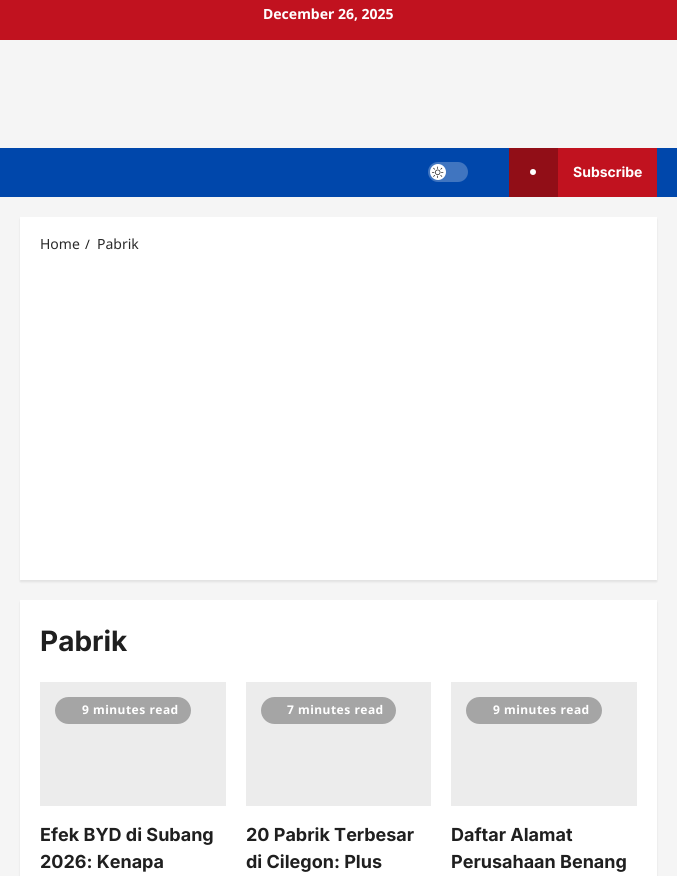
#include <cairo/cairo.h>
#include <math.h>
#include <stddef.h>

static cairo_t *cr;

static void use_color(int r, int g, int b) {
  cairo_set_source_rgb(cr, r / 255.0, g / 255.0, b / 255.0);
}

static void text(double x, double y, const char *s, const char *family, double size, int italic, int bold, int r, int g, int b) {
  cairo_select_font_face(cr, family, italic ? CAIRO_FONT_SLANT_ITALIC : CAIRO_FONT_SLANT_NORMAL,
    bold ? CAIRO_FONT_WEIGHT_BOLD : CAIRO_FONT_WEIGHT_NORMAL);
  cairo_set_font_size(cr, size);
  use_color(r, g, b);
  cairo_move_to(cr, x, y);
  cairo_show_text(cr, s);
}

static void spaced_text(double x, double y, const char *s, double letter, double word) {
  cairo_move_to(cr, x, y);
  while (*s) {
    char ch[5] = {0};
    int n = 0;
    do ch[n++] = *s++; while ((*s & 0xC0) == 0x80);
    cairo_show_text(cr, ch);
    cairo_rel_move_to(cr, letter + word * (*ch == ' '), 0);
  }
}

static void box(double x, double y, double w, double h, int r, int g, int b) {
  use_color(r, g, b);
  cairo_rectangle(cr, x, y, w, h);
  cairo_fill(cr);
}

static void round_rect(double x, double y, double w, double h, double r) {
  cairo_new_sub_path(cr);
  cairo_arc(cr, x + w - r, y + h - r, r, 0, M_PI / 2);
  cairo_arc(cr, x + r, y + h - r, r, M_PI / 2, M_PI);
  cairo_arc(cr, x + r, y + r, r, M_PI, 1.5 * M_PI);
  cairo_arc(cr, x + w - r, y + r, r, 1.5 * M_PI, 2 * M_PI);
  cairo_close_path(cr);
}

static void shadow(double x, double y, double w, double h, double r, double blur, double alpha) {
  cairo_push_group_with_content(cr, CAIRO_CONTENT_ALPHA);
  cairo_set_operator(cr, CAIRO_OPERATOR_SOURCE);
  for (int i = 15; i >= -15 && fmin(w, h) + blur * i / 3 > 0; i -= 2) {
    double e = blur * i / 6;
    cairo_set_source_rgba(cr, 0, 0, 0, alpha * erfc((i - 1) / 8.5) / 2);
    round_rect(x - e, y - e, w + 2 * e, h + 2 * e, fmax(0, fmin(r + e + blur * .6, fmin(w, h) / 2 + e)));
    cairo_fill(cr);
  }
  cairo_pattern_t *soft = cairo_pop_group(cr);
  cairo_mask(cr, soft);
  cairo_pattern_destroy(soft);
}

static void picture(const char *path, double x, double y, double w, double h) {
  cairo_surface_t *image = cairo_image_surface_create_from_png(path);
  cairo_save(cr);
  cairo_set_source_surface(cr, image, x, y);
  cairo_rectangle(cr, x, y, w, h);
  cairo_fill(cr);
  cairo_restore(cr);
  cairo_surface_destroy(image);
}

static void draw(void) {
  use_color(245, 245, 245);
  cairo_paint(cr);
  box(0, 0, 677, 40, 193, 18, 31);
  box(0, 148, 677, 49, 0, 71, 171);
  use_color(64, 117, 192);
  round_rect(428, 162, 40, 20, 10);
  cairo_fill(cr);
  use_color(255, 255, 255);
  cairo_arc(cr, 438, 172, 8, 0, 2 * M_PI);
  cairo_fill(cr);
  picture("img_01.png", 432, 166, 12, 12);
  box(558, 148, 99, 49, 193, 18, 31);
  box(509, 148, 49, 49, 145, 14, 23);
  use_color(255, 255, 255);
  cairo_arc(cr, 533, 172, 3, 0, 2 * M_PI);
  cairo_fill(cr);
  use_color(0, 0, 0);
  shadow(20, 219, 637, 363, 0, 1, 0.08);
  box(20, 217, 637, 363, 255, 255, 255);
  use_color(0, 0, 0);
  shadow(20, 602, 637, 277, 0, 1, 0.08);
  box(20, 600, 637, 276, 255, 255, 255);
  box(40, 682, 186, 124, 236, 236, 236);
  use_color(165, 165, 165);
  round_rect(55, 697, 136, 27, 13.5);
  cairo_fill(cr);
  box(246, 682, 185, 124, 236, 236, 236);
  use_color(165, 165, 165);
  round_rect(261, 697, 135, 27, 13.5);
  cairo_fill(cr);
  box(451, 682, 186, 124, 236, 236, 236);
  use_color(165, 165, 165);
  round_rect(466, 697, 136, 27, 13.5);
  cairo_fill(cr);
  text(263, 19, "December 26, 2025", "Noto Sans", 14, 0, 1, 255, 255, 255);
  text(573, 177, "Subscribe", "Inter", 14, 0, 1, 255, 255, 255);
  text(40, 249, "Home", "Noto Sans", 14, 0, 0, 42, 42, 42);
  text(85, 249, "/", "Noto Sans", 13, 0, 0, 31, 31, 31);
  text(97, 249, "Pabrik", "Noto Sans", 14, 0, 0, 42, 42, 42);
  text(40, 651, "Pabrik", "Inter", 28, 0, 1, 31, 31, 31);
  cairo_select_font_face(cr, "Noto Sans", CAIRO_FONT_SLANT_NORMAL, CAIRO_FONT_WEIGHT_BOLD);
  cairo_set_font_size(cr, 12);
  use_color(255, 255, 255);
  spaced_text(82, 714, "9 minutes read", 0.5, 0);
  text(40, 841, "Efek BYD di Subang", "Inter", 18, 0, 1, 31, 31, 31);
  text(40, 868, "2026: Kenapa", "Inter", 18, 0, 1, 31, 31, 31);
  cairo_select_font_face(cr, "Noto Sans", CAIRO_FONT_SLANT_NORMAL, CAIRO_FONT_WEIGHT_BOLD);
  cairo_set_font_size(cr, 12);
  use_color(255, 255, 255);
  spaced_text(287, 714, "7 minutes read", 0.5, 0);
  text(246, 841, "20 Pabrik Terbesar", "Inter", 18, 0, 1, 31, 31, 31);
  text(246, 868, "di Cilegon: Plus", "Inter", 18, 0, 1, 31, 31, 31);
  cairo_select_font_face(cr, "Noto Sans", CAIRO_FONT_SLANT_NORMAL, CAIRO_FONT_WEIGHT_BOLD);
  cairo_set_font_size(cr, 12);
  use_color(255, 255, 255);
  spaced_text(493, 714, "9 minutes read", 0.5, 0);
  text(451, 841, "Daftar Alamat", "Inter", 18, 0, 1, 31, 31, 31);
  text(451, 868, "Perusahaan Benang", "Inter", 18, 0, 1, 31, 31, 31);
}

int main(void) {
  cairo_surface_t *surface = cairo_image_surface_create(CAIRO_FORMAT_RGB24, 677, 876);
  cr = cairo_create(surface);
  cairo_font_options_t *options = cairo_font_options_create();
  cairo_font_options_set_hint_metrics(options, CAIRO_HINT_METRICS_OFF);
  cairo_font_options_set_hint_style(options, CAIRO_HINT_STYLE_NONE);
  cairo_set_font_options(cr, options);
  cairo_set_miter_limit(cr, 4);
  draw();
  cairo_surface_write_to_png(surface, "out.png");
  cairo_font_options_destroy(options);
  cairo_destroy(cr);
  cairo_surface_destroy(surface);
  return 0;
}
